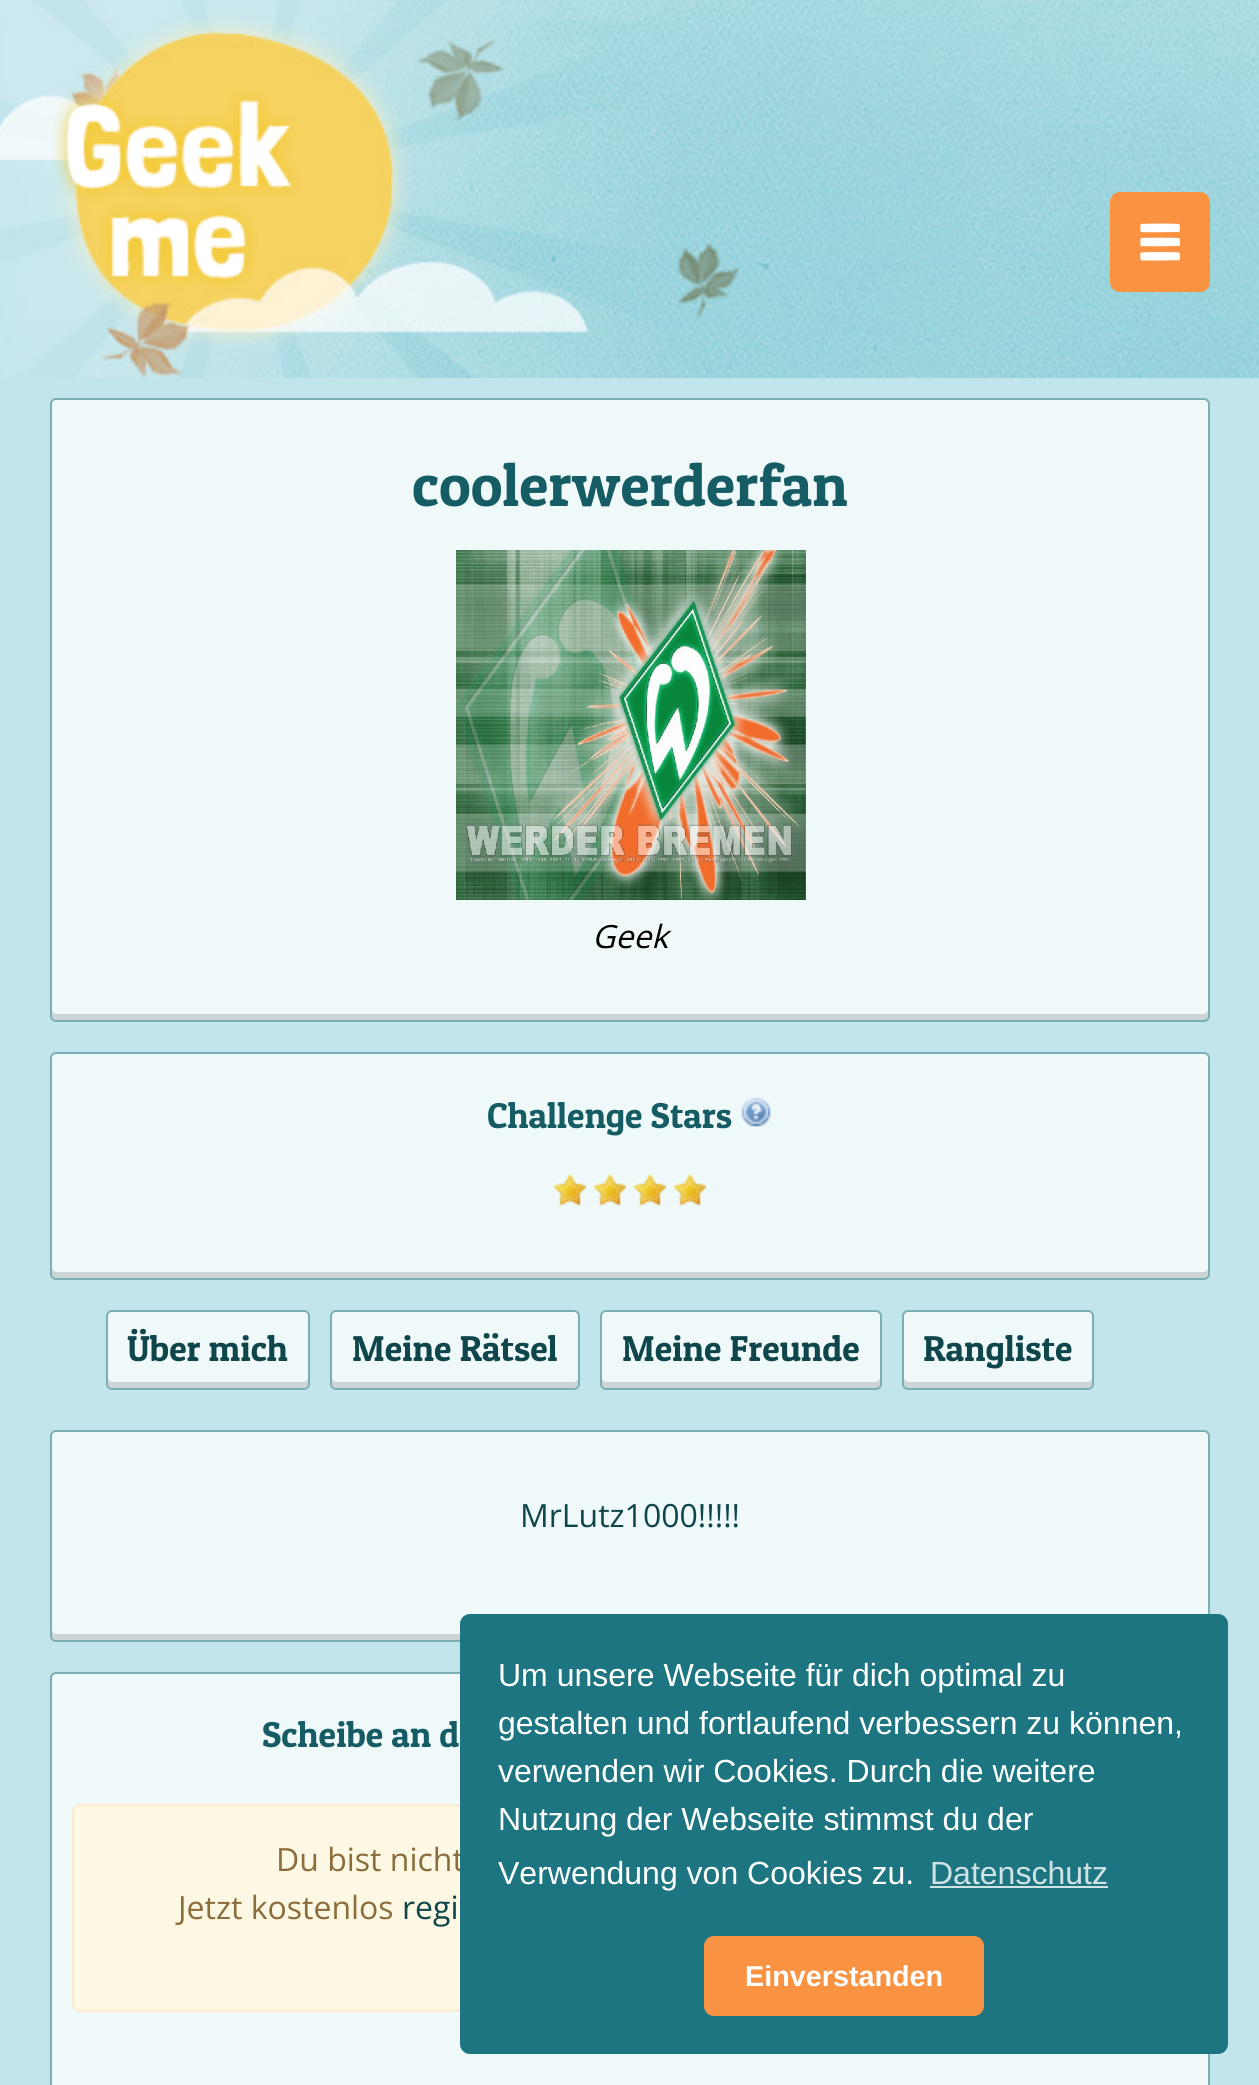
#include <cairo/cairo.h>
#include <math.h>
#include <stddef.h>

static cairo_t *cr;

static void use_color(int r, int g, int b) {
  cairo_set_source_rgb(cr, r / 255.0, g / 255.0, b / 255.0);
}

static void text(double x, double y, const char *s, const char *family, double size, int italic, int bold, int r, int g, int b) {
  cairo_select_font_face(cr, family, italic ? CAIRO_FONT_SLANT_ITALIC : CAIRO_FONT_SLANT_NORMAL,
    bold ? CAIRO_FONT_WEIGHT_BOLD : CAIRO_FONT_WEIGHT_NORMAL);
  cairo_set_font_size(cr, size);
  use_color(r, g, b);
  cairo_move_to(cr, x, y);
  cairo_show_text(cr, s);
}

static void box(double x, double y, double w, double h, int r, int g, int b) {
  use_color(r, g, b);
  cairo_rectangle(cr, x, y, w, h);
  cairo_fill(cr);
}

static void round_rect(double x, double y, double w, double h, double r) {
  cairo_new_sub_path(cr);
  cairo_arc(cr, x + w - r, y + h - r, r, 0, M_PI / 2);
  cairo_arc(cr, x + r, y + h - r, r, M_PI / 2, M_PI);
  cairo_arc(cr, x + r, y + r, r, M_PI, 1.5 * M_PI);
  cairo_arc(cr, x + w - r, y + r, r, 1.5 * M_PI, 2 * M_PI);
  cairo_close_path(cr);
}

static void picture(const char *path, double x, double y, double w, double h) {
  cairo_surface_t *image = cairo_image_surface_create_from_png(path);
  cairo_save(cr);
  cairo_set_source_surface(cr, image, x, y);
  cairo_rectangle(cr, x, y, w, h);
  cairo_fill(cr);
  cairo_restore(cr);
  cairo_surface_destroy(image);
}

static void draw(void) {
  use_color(194, 229, 235);
  cairo_paint(cr);
  picture("img_01.png", 0, 0, 1259, 378);
  picture("img_02.png", 53, 89, 246, 201);
  use_color(249, 147, 65);
  round_rect(1110, 192, 100, 100, 10);
  cairo_fill(cr);
  picture("img_03.png", 1140, 223, 40, 38);
  use_color(240, 249, 250);
  round_rect(50, 398, 1160, 624, 6);
  cairo_fill(cr);
  use_color(204, 212, 213);
  cairo_new_path(cr);
  cairo_move_to(cr, 52, 1010);
  cairo_line_to(cr, 52, 1016);
  cairo_curve_to(cr, 52, 1018, 54, 1020, 56, 1020);
  cairo_line_to(cr, 1204, 1020);
  cairo_curve_to(cr, 1206, 1020, 1208, 1018, 1208, 1016);
  cairo_line_to(cr, 1208, 1010);
  cairo_curve_to(cr, 1208, 1012, 1206, 1014, 1204, 1014);
  cairo_line_to(cr, 56, 1014);
  cairo_curve_to(cr, 54, 1014, 52, 1012, 52, 1010);
  cairo_close_path(cr);
  cairo_fill(cr);
  round_rect(51, 399, 1158, 622, 5);
  cairo_set_source_rgba(cr, 0.11, 0.451, 0.494, 0.55);
  cairo_stroke(cr);
  picture("img_04.png", 456, 550, 350, 350);
  use_color(240, 249, 250);
  round_rect(50, 1052, 1160, 228, 6);
  cairo_fill(cr);
  use_color(204, 212, 213);
  cairo_new_path(cr);
  cairo_move_to(cr, 52, 1268);
  cairo_line_to(cr, 52, 1274);
  cairo_curve_to(cr, 52, 1276, 54, 1278, 56, 1278);
  cairo_line_to(cr, 1204, 1278);
  cairo_curve_to(cr, 1206, 1278, 1208, 1276, 1208, 1274);
  cairo_line_to(cr, 1208, 1268);
  cairo_curve_to(cr, 1208, 1270, 1206, 1272, 1204, 1272);
  cairo_line_to(cr, 56, 1272);
  cairo_curve_to(cr, 54, 1272, 52, 1270, 52, 1268);
  cairo_close_path(cr);
  cairo_fill(cr);
  round_rect(51, 1053, 1158, 226, 5);
  cairo_set_source_rgba(cr, 0.11, 0.451, 0.494, 0.55);
  cairo_stroke(cr);
  picture("img_05.png", 741, 1097, 30, 30);
  picture("img_06.png", 554, 1174, 32, 32);
  picture("img_06.png", 594, 1174, 32, 32);
  picture("img_06.png", 634, 1174, 32, 32);
  picture("img_06.png", 674, 1174, 32, 32);
  use_color(240, 249, 250);
  round_rect(106, 1310, 204, 80, 6);
  cairo_fill(cr);
  use_color(204, 212, 213);
  cairo_new_path(cr);
  cairo_move_to(cr, 108, 1378);
  cairo_line_to(cr, 108, 1384);
  cairo_curve_to(cr, 108, 1386, 110, 1388, 112, 1388);
  cairo_line_to(cr, 304, 1388);
  cairo_curve_to(cr, 306, 1388, 308, 1386, 308, 1384);
  cairo_line_to(cr, 308, 1378);
  cairo_curve_to(cr, 308, 1380, 306, 1382, 304, 1382);
  cairo_line_to(cr, 112, 1382);
  cairo_curve_to(cr, 110, 1382, 108, 1380, 108, 1378);
  cairo_close_path(cr);
  cairo_fill(cr);
  round_rect(107, 1311, 202, 78, 5);
  cairo_set_source_rgba(cr, 0.11, 0.451, 0.494, 0.55);
  cairo_stroke(cr);
  use_color(240, 249, 250);
  round_rect(330, 1310, 250, 80, 6);
  cairo_fill(cr);
  use_color(204, 212, 213);
  cairo_new_path(cr);
  cairo_move_to(cr, 332, 1378);
  cairo_line_to(cr, 332, 1384);
  cairo_curve_to(cr, 332, 1386, 334, 1388, 336, 1388);
  cairo_line_to(cr, 574, 1388);
  cairo_curve_to(cr, 576, 1388, 578, 1386, 578, 1384);
  cairo_line_to(cr, 578, 1378);
  cairo_curve_to(cr, 578, 1380, 576, 1382, 574, 1382);
  cairo_line_to(cr, 336, 1382);
  cairo_curve_to(cr, 334, 1382, 332, 1380, 332, 1378);
  cairo_close_path(cr);
  cairo_fill(cr);
  round_rect(331, 1311, 248, 78, 5);
  cairo_set_source_rgba(cr, 0.11, 0.451, 0.494, 0.55);
  cairo_stroke(cr);
  use_color(240, 249, 250);
  round_rect(600, 1310, 282, 80, 6);
  cairo_fill(cr);
  use_color(204, 212, 213);
  cairo_new_path(cr);
  cairo_move_to(cr, 602, 1378);
  cairo_line_to(cr, 602, 1384);
  cairo_curve_to(cr, 602, 1386, 604, 1388, 606, 1388);
  cairo_line_to(cr, 876, 1388);
  cairo_curve_to(cr, 878, 1388, 880, 1386, 880, 1384);
  cairo_line_to(cr, 880, 1378);
  cairo_curve_to(cr, 880, 1380, 878, 1382, 876, 1382);
  cairo_line_to(cr, 606, 1382);
  cairo_curve_to(cr, 604, 1382, 602, 1380, 602, 1378);
  cairo_close_path(cr);
  cairo_fill(cr);
  round_rect(601, 1311, 280, 78, 5);
  cairo_set_source_rgba(cr, 0.11, 0.451, 0.494, 0.55);
  cairo_stroke(cr);
  use_color(240, 249, 250);
  round_rect(902, 1310, 192, 80, 6);
  cairo_fill(cr);
  use_color(204, 212, 213);
  cairo_new_path(cr);
  cairo_move_to(cr, 904, 1378);
  cairo_line_to(cr, 904, 1384);
  cairo_curve_to(cr, 904, 1386, 906, 1388, 908, 1388);
  cairo_line_to(cr, 1088, 1388);
  cairo_curve_to(cr, 1090, 1388, 1092, 1386, 1092, 1384);
  cairo_line_to(cr, 1092, 1378);
  cairo_curve_to(cr, 1092, 1380, 1090, 1382, 1088, 1382);
  cairo_line_to(cr, 908, 1382);
  cairo_curve_to(cr, 906, 1382, 904, 1380, 904, 1378);
  cairo_close_path(cr);
  cairo_fill(cr);
  round_rect(903, 1311, 190, 78, 5);
  cairo_set_source_rgba(cr, 0.11, 0.451, 0.494, 0.55);
  cairo_stroke(cr);
  use_color(240, 249, 250);
  round_rect(50, 1430, 1160, 212, 6);
  cairo_fill(cr);
  use_color(204, 212, 213);
  cairo_new_path(cr);
  cairo_move_to(cr, 52, 1630);
  cairo_line_to(cr, 52, 1636);
  cairo_curve_to(cr, 52, 1638, 54, 1640, 56, 1640);
  cairo_line_to(cr, 1204, 1640);
  cairo_curve_to(cr, 1206, 1640, 1208, 1638, 1208, 1636);
  cairo_line_to(cr, 1208, 1630);
  cairo_curve_to(cr, 1208, 1632, 1206, 1634, 1204, 1634);
  cairo_line_to(cr, 56, 1634);
  cairo_curve_to(cr, 54, 1634, 52, 1632, 52, 1630);
  cairo_close_path(cr);
  cairo_fill(cr);
  round_rect(51, 1431, 1158, 210, 5);
  cairo_set_source_rgba(cr, 0.11, 0.451, 0.494, 0.55);
  cairo_stroke(cr);
  use_color(240, 249, 250);
  round_rect(50, 1672, 1160, 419, 6);
  cairo_fill(cr);
  round_rect(51, 1673, 1158, 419, 5);
  cairo_set_source_rgba(cr, 0.11, 0.451, 0.494, 0.55);
  cairo_stroke(cr);
  use_color(252, 248, 227);
  round_rect(73, 1805, 1114, 206, 7);
  cairo_fill_preserve(cr);
  use_color(250, 235, 204);
  cairo_stroke(cr);
  text(412, 506, "coolerwerderfan", "Patua One", 60, 0, 0, 21, 92, 100);
  text(592, 948, "Geek", "Open Sans", 32, 1, 0, 0, 0, 0);
  text(487, 1128, "Challenge Stars", "Patua One", 36, 0, 0, 21, 92, 100);
  text(127, 1361, "Über mich", "Patua One", 36, 0, 0, 15, 70, 76);
  text(352, 1361, "Meine Rätsel", "Patua One", 36, 0, 0, 15, 70, 76);
  text(622, 1361, "Meine Freunde", "Patua One", 36, 0, 0, 15, 70, 76);
  text(923, 1361, "Rangliste", "Patua One", 36, 0, 0, 15, 70, 76);
  text(520, 1527, "MrLutz1000!!!!!", "Open Sans", 32, 0, 0, 15, 70, 76);
  text(262, 1747, "Scheibe an d", "Patua One", 36, 0, 0, 21, 92, 100);
  text(276, 1871, "Du bist nicht", "Open Sans", 32, 0, 0, 138, 109, 59);
  text(178, 1919, "Jetzt kostenlos", "Open Sans", 32, 0, 0, 138, 109, 59);
  text(402, 1919, "regi", "Open Sans", 32, 0, 0, 15, 70, 76);
  use_color(28, 117, 128);
  round_rect(460, 1614, 768, 440, 10);
  cairo_fill(cr);
  text(498, 1686, "Um unsere Webseite für dich optimal zu", "Liberation Sans", 32, 0, 0, 255, 255, 255);
  text(498, 1734, "gestalten und fortlaufend verbessern zu können,", "Liberation Sans", 32, 0, 0, 255, 255, 255);
  text(498, 1782, "verwenden wir Cookies. Durch die weitere", "Liberation Sans", 32, 0, 0, 255, 255, 255);
  text(498, 1830, "Nutzung der Webseite stimmst du der", "Liberation Sans", 32, 0, 0, 255, 255, 255);
  text(498, 1884, "Verwendung von Cookies zu.", "Liberation Sans", 32, 0, 0, 255, 255, 255);
  text(930, 1884, "Datenschutz", "Liberation Sans", 32, 0, 0, 210, 227, 230);
  box(930, 1886, 178, 2, 210, 227, 230);
  use_color(249, 147, 65);
  round_rect(704, 1936, 280, 80, 10);
  cairo_fill(cr);
  text(745, 1986, "Einverstanden", "Liberation Sans", 28.75, 0, 1, 255, 255, 255);
}

int main(void) {
  cairo_surface_t *surface = cairo_image_surface_create(CAIRO_FORMAT_RGB24, 1259, 2085);
  cr = cairo_create(surface);
  cairo_font_options_t *options = cairo_font_options_create();
  cairo_font_options_set_hint_metrics(options, CAIRO_HINT_METRICS_OFF);
  cairo_font_options_set_hint_style(options, CAIRO_HINT_STYLE_NONE);
  cairo_set_font_options(cr, options);
  cairo_set_miter_limit(cr, 4);
  draw();
  cairo_surface_write_to_png(surface, "out.png");
  cairo_font_options_destroy(options);
  cairo_destroy(cr);
  cairo_surface_destroy(surface);
  return 0;
}
